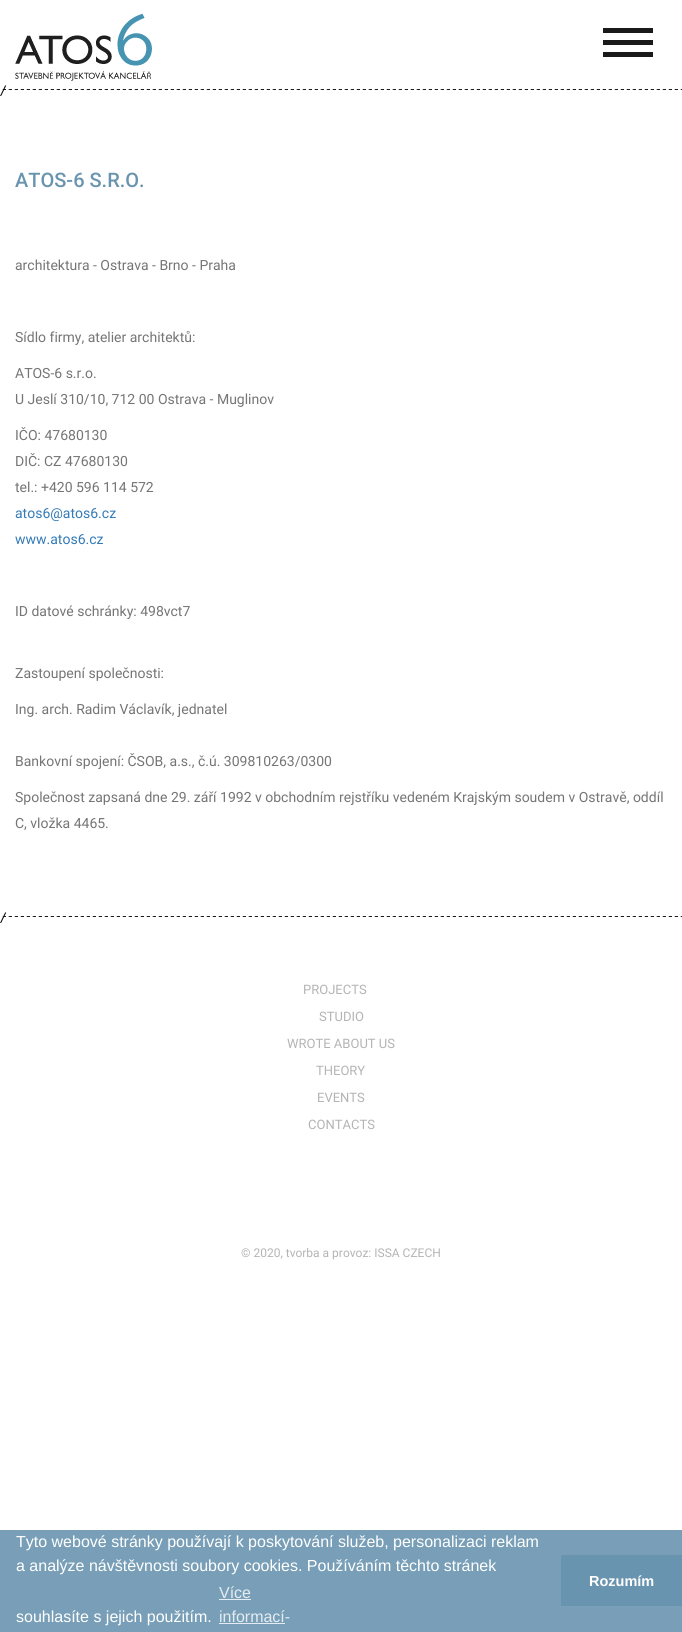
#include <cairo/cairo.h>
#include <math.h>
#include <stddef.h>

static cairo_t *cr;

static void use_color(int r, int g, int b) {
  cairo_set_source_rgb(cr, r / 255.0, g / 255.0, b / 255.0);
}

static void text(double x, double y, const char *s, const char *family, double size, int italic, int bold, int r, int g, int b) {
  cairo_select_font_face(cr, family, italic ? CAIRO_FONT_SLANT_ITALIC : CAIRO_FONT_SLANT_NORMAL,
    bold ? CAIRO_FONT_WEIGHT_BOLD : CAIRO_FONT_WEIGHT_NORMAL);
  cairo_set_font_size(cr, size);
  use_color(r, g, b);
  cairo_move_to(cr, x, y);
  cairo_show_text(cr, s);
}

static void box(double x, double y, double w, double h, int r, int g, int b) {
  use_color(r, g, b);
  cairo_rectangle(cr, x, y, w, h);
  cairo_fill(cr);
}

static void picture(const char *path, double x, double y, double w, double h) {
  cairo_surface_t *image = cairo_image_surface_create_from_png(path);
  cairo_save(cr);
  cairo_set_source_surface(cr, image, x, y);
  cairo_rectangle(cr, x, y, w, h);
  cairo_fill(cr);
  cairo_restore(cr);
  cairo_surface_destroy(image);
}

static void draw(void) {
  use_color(255, 255, 255);
  cairo_paint(cr);
  picture("img_01.png", 15, 13, 137, 68);
  box(603, 28, 50, 5, 26, 26, 26);
  box(603, 40, 50, 5, 26, 26, 26);
  box(603, 52, 50, 5, 26, 26, 26);
  picture("img_02.png", 2, 89, 680, 1);
  box(0, 1530, 682, 102, 120, 159, 183);
  box(219, 1599, 32, 1, 228, 236, 241);
  box(219, 1623, 66, 1, 228, 236, 241);
  box(561, 1555, 121, 51, 105, 148, 175);
  cairo_save(cr);
  cairo_translate(cr, 0, 95);
  cairo_rotate(cr, 5 * M_PI / 180);
  text(0, 0, "/", "Roboto", 14, 0, 0, 0, 0, 0);
  cairo_restore(cr);
  text(15, 187, "ATOS-6 S.R.O.", "Roboto Medium", 20, 0, 0, 105, 148, 175);
  text(15, 270, "architektura - Ostrava - Brno - Praha", "Roboto", 14, 0, 0, 117, 117, 117);
  text(15, 342, "Sídlo firmy, atelier architektů:", "Roboto", 14, 0, 0, 117, 117, 117);
  text(15, 378, "ATOS-6 s.r.o.", "Roboto", 14, 0, 0, 117, 117, 117);
  text(15, 404, "U Jeslí 310/10, 712 00 Ostrava - Muglinov", "Roboto", 14, 0, 0, 117, 117, 117);
  text(15, 440, "IČO: 47680130", "Roboto", 14, 0, 0, 117, 117, 117);
  text(15, 466, "DIČ: CZ 47680130", "Roboto", 14, 0, 0, 117, 117, 117);
  text(15, 492, "tel.: +420 596 114 572", "Roboto", 14, 0, 0, 117, 117, 117);
  text(15, 518, "atos6@atos6.cz", "Roboto", 14, 0, 0, 51, 122, 183);
  text(15, 544, "www.atos6.cz", "Roboto", 14, 0, 0, 51, 122, 183);
  text(15, 616, "ID datové schránky: 498vct7", "Roboto", 14, 0, 0, 117, 117, 117);
  text(15, 678, "Zastoupení společnosti:", "Roboto", 14, 0, 0, 117, 117, 117);
  text(15, 714, "Ing. arch. Radim Václavík, jednatel", "Roboto", 14, 0, 0, 117, 117, 117);
  text(15, 766, "Bankovní spojení: ČSOB, a.s., č.ú. 309810263/0300", "Roboto", 14, 0, 0, 117, 117, 117);
  text(15, 802, "Společnost zapsaná dne 29. září 1992 v obchodním rejstříku vedeném Krajským soudem v Ostravě, oddíl", "Roboto", 14, 0, 0, 117, 117, 117);
  text(15, 828, "C, vložka 4465.", "Roboto", 14, 0, 0, 117, 117, 117);
  cairo_save(cr);
  cairo_translate(cr, 0, 922);
  cairo_rotate(cr, 5 * M_PI / 180);
  text(0, 0, "/", "Roboto", 14, 0, 0, 0, 0, 0);
  cairo_restore(cr);
  picture("img_02.png", 2, 916, 680, 1);
  text(303, 994, "PROJECTS", "Roboto", 13, 0, 0, 180, 180, 180);
  text(319, 1021, "STUDIO", "Roboto", 13, 0, 0, 180, 180, 180);
  text(287, 1048, "WROTE ABOUT US", "Roboto", 13, 0, 0, 180, 180, 180);
  text(316, 1075, "THEORY", "Roboto", 13, 0, 0, 180, 180, 180);
  text(317, 1102, "EVENTS", "Roboto", 13, 0, 0, 180, 180, 180);
  text(308, 1129, "CONTACTS", "Roboto", 13, 0, 0, 180, 180, 180);
  text(241, 1257, "© 2020, tvorba a provoz: ISSA CZECH", "Roboto", 12, 0, 0, 180, 180, 180);
  text(16, 1547, "Tyto webové stránky používají k poskytování služeb, personalizaci reklam", "Liberation Sans", 16, 0, 0, 255, 255, 255);
  text(16, 1571, "a analýze návštěvnosti soubory cookies. Používáním těchto stránek", "Liberation Sans", 16, 0, 0, 255, 255, 255);
  text(16, 1622, "souhlasíte s jejich použitím.", "Liberation Sans", 16, 0, 0, 255, 255, 255);
  text(219, 1598, "Více", "Liberation Sans", 16, 0, 0, 228, 236, 241);
  text(219, 1622, "informací-", "Liberation Sans", 16, 0, 0, 228, 236, 241);
  text(589, 1586, "Rozumím", "Liberation Sans", 14.5, 0, 1, 255, 255, 255);
}

int main(void) {
  cairo_surface_t *surface = cairo_image_surface_create(CAIRO_FORMAT_RGB24, 682, 1632);
  cr = cairo_create(surface);
  cairo_font_options_t *options = cairo_font_options_create();
  cairo_font_options_set_hint_metrics(options, CAIRO_HINT_METRICS_OFF);
  cairo_font_options_set_hint_style(options, CAIRO_HINT_STYLE_NONE);
  cairo_set_font_options(cr, options);
  cairo_set_miter_limit(cr, 4);
  draw();
  cairo_surface_write_to_png(surface, "out.png");
  cairo_font_options_destroy(options);
  cairo_destroy(cr);
  cairo_surface_destroy(surface);
  return 0;
}
